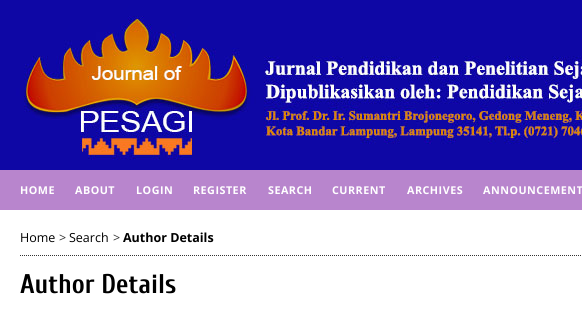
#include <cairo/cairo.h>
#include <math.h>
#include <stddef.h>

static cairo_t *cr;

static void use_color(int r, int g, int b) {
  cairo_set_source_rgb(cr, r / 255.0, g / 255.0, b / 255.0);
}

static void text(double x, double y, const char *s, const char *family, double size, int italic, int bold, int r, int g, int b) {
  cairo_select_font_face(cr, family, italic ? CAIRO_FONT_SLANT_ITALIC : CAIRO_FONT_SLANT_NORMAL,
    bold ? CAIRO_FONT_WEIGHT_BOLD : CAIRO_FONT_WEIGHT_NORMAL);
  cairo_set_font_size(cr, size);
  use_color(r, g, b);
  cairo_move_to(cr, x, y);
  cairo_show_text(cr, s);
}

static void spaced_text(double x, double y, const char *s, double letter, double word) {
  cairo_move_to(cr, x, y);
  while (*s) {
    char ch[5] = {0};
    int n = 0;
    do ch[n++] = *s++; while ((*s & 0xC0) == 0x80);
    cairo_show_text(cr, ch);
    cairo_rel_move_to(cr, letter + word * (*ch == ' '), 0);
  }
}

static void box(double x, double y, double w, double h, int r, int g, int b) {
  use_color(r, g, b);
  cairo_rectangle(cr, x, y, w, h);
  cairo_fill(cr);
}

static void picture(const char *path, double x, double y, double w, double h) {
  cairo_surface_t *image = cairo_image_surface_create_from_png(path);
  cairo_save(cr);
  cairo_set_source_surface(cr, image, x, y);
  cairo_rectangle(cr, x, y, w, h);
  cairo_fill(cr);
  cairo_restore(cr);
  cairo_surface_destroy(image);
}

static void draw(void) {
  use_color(255, 255, 255);
  cairo_paint(cr);
  picture("img_01.png", 0, 0, 582, 170);
  box(0, 170, 582, 40, 184, 133, 205);
  cairo_new_path(cr);
  cairo_move_to(cr, 20, 255.5);
  cairo_line_to(cr, 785, 255.5);
  use_color(51, 51, 51);
  cairo_set_line_width(cr, 1);
  cairo_set_dash(cr, (double[]){1, 1}, 2, 0);
  cairo_stroke(cr);
  cairo_select_font_face(cr, "Open Sans", CAIRO_FONT_SLANT_NORMAL, CAIRO_FONT_WEIGHT_BOLD);
  cairo_set_font_size(cr, 10.75);
  use_color(255, 255, 255);
  spaced_text(20, 194, "HOME", 0.5, 0);
  spaced_text(75, 194, "ABOUT", 0.5, 0);
  spaced_text(136, 194, "LOGIN", 0.5, 0);
  spaced_text(193, 194, "REGISTER", 0.5, 0);
  spaced_text(268, 194, "SEARCH", 0.5, 0);
  spaced_text(332, 194, "CURRENT", 0.5, 0);
  spaced_text(407, 194, "ARCHIVES", 0.5, 0);
  spaced_text(483, 194, "ANNOUNCEMENT", 0.5, 0);
  text(20, 242, "Home", "Open Sans", 12.5, 0, 0, 0, 0, 0);
  text(59, 242, ">", "Open Sans", 12.5, 0, 0, 51, 51, 51);
  text(69, 242, "Search", "Open Sans", 12.5, 0, 0, 0, 0, 0);
  text(113, 242, ">", "Open Sans", 12.5, 0, 0, 51, 51, 51);
  text(123, 242, "Author Details", "Open Sans", 12.5, 0, 1, 0, 0, 0);
  text(20, 293, "Author Details", "Cuprum", 27, 0, 1, 0, 0, 0);
}

int main(void) {
  cairo_surface_t *surface = cairo_image_surface_create(CAIRO_FORMAT_RGB24, 582, 332);
  cr = cairo_create(surface);
  cairo_font_options_t *options = cairo_font_options_create();
  cairo_font_options_set_hint_metrics(options, CAIRO_HINT_METRICS_OFF);
  cairo_font_options_set_hint_style(options, CAIRO_HINT_STYLE_NONE);
  cairo_set_font_options(cr, options);
  cairo_set_miter_limit(cr, 4);
  draw();
  cairo_surface_write_to_png(surface, "out.png");
  cairo_font_options_destroy(options);
  cairo_destroy(cr);
  cairo_surface_destroy(surface);
  return 0;
}
